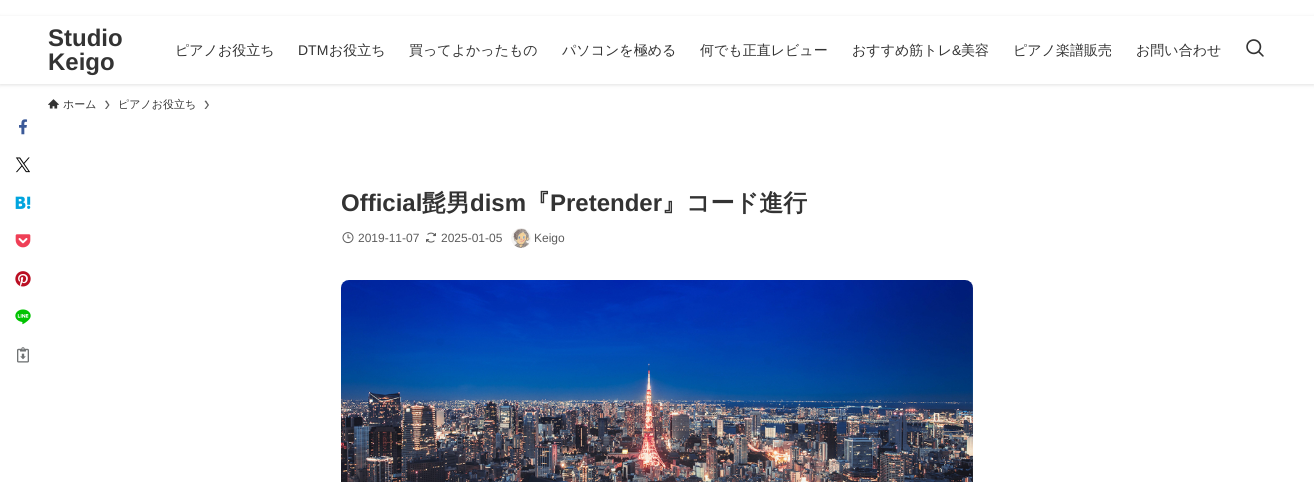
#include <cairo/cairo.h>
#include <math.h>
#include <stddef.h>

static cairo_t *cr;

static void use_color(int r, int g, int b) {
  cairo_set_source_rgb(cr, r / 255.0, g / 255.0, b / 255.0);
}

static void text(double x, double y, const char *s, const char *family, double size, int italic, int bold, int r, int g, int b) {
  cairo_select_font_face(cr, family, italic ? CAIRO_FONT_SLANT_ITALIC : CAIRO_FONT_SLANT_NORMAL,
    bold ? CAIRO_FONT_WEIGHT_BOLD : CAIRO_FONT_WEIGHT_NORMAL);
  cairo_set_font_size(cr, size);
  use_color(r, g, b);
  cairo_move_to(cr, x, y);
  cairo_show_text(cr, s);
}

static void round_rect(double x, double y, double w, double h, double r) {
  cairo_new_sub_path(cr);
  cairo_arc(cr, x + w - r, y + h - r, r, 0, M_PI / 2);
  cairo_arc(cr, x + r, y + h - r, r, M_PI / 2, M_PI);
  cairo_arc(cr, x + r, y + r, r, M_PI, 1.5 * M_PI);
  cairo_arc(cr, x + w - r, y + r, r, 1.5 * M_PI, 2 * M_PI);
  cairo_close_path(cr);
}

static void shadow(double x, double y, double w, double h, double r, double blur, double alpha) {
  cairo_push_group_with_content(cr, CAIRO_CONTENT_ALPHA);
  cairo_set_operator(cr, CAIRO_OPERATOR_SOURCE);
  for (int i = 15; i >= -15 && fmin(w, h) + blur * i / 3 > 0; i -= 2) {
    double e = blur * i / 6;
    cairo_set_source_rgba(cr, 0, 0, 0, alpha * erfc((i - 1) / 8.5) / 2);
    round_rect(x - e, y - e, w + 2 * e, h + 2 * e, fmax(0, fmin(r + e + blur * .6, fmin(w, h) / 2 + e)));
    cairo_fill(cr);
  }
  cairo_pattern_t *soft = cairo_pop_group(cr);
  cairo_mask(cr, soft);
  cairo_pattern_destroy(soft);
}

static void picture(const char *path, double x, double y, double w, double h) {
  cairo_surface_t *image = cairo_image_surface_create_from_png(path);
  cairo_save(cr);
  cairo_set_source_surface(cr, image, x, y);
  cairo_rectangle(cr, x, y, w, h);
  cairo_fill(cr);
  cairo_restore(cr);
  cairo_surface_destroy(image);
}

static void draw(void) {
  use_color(255, 255, 255);
  cairo_paint(cr);
  cairo_save(cr);
  cairo_set_fill_rule(cr, CAIRO_FILL_RULE_EVEN_ODD);
  cairo_new_path(cr);
  cairo_move_to(cr, 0, 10);
  cairo_line_to(cr, 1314, 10);
  cairo_line_to(cr, 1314, 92);
  cairo_line_to(cr, 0, 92);
  cairo_close_path(cr);
  cairo_move_to(cr, 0, 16);
  cairo_line_to(cr, 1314, 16);
  cairo_line_to(cr, 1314, 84);
  cairo_line_to(cr, 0, 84);
  cairo_close_path(cr);
  cairo_clip(cr);
  use_color(0, 0, 0);
  shadow(0, 17, 1314, 68, 0, 2, 0.12);
  cairo_restore(cr);
  picture("img_01.png", 1246, 39, 18, 18);
  picture("img_02.png", 48, 99, 11, 10);
  use_color(92, 92, 92);
  cairo_new_path(cr);
  cairo_move_to(cr, 106.5, 100.5);
  cairo_line_to(cr, 105, 101);
  cairo_line_to(cr, 108, 105);
  cairo_line_to(cr, 105, 109);
  cairo_line_to(cr, 106.5, 109);
  cairo_line_to(cr, 109.5, 105);
  cairo_close_path(cr);
  cairo_fill(cr);
  cairo_new_path(cr);
  cairo_move_to(cr, 206, 100.5);
  cairo_line_to(cr, 204.5, 101);
  cairo_line_to(cr, 207.5, 105);
  cairo_line_to(cr, 204.5, 109);
  cairo_line_to(cr, 206, 109);
  cairo_line_to(cr, 209, 105);
  cairo_close_path(cr);
  cairo_fill(cr);
  picture("img_03.png", 19, 119, 9, 16);
  picture("img_04.png", 15, 157, 15, 16);
  picture("img_05.png", 15, 196, 16, 13);
  picture("img_06.png", 15, 234, 16, 14);
  picture("img_07.png", 15, 271, 16, 16);
  picture("img_08.png", 15, 309, 16, 16);
  picture("img_09.png", 17, 347, 12, 16);
  picture("img_10.png", 342, 232, 12, 12);
  picture("img_11.png", 426, 232, 10, 11);
  picture("img_12.png", 511, 228, 20, 20);
  picture("img_13.png", 341, 280, 632, 202);
  text(48, 46, "Studio", "Liberation Sans", 24, 0, 1, 51, 51, 51);
  text(48, 70, "Keigo", "Liberation Sans", 24, 0, 1, 51, 51, 51);
  text(175, 55, "ピアノお役立ち", "WenQuanYi Zen Hei Medium", 14, 0, 0, 51, 51, 51);
  text(298, 55, "DTM", "Liberation Sans", 14, 0, 0, 51, 51, 51);
  text(329, 55, "お役立ち", "WenQuanYi Zen Hei Medium", 14, 0, 0, 51, 51, 51);
  text(409, 55, "買ってよかったもの", "WenQuanYi Zen Hei Medium", 14, 0, 0, 51, 51, 51);
  text(562, 55, "パソコンを極める", "WenQuanYi Zen Hei Medium", 14, 0, 0, 51, 51, 51);
  text(700, 55, "何でも正直レビュー", "WenQuanYi Zen Hei Medium", 14, 0, 0, 51, 51, 51);
  text(852, 55, "おすすめ筋トレ", "WenQuanYi Zen Hei Medium", 14, 0, 0, 51, 51, 51);
  text(952, 55, "&", "Liberation Sans", 14, 0, 0, 51, 51, 51);
  text(961, 55, "美容", "WenQuanYi Zen Hei Medium", 14, 0, 0, 51, 51, 51);
  text(1013, 55, "ピアノ楽譜販売", "WenQuanYi Zen Hei Medium", 14, 0, 0, 51, 51, 51);
  text(1136, 55, "お問い合わせ", "WenQuanYi Zen Hei Medium", 14, 0, 0, 51, 51, 51);
  text(63, 108, "ホーム", "WenQuanYi Zen Hei Medium", 11, 0, 0, 51, 51, 51);
  text(118, 108, "ピアノお役立ち", "WenQuanYi Zen Hei Medium", 11, 0, 0, 51, 51, 51);
  text(341, 211, "Official", "Liberation Sans", 24, 0, 1, 51, 51, 51);
  text(422, 211, "髭男", "WenQuanYi Zen Hei", 24, 0, 1, 51, 51, 51);
  text(470, 211, "dism", "Liberation Sans", 24, 0, 1, 51, 51, 51);
  text(526, 211, "『", "WenQuanYi Zen Hei", 24, 0, 1, 51, 51, 51);
  text(550, 211, "Pretender", "Liberation Sans", 24, 0, 1, 51, 51, 51);
  text(662, 211, "』コード進行", "WenQuanYi Zen Hei", 24, 0, 1, 51, 51, 51);
  text(358, 242, "2019-11-07", "Liberation Sans", 12, 0, 0, 92, 92, 92);
  text(441, 242, "2025-01-05", "Liberation Sans", 12, 0, 0, 92, 92, 92);
  text(534, 242, "Keigo", "Liberation Sans", 12, 0, 0, 92, 92, 92);
}

int main(void) {
  cairo_surface_t *surface = cairo_image_surface_create(CAIRO_FORMAT_RGB24, 1314, 482);
  cr = cairo_create(surface);
  cairo_font_options_t *options = cairo_font_options_create();
  cairo_font_options_set_hint_metrics(options, CAIRO_HINT_METRICS_OFF);
  cairo_font_options_set_hint_style(options, CAIRO_HINT_STYLE_NONE);
  cairo_set_font_options(cr, options);
  cairo_set_miter_limit(cr, 4);
  draw();
  cairo_surface_write_to_png(surface, "out.png");
  cairo_font_options_destroy(options);
  cairo_destroy(cr);
  cairo_surface_destroy(surface);
  return 0;
}
